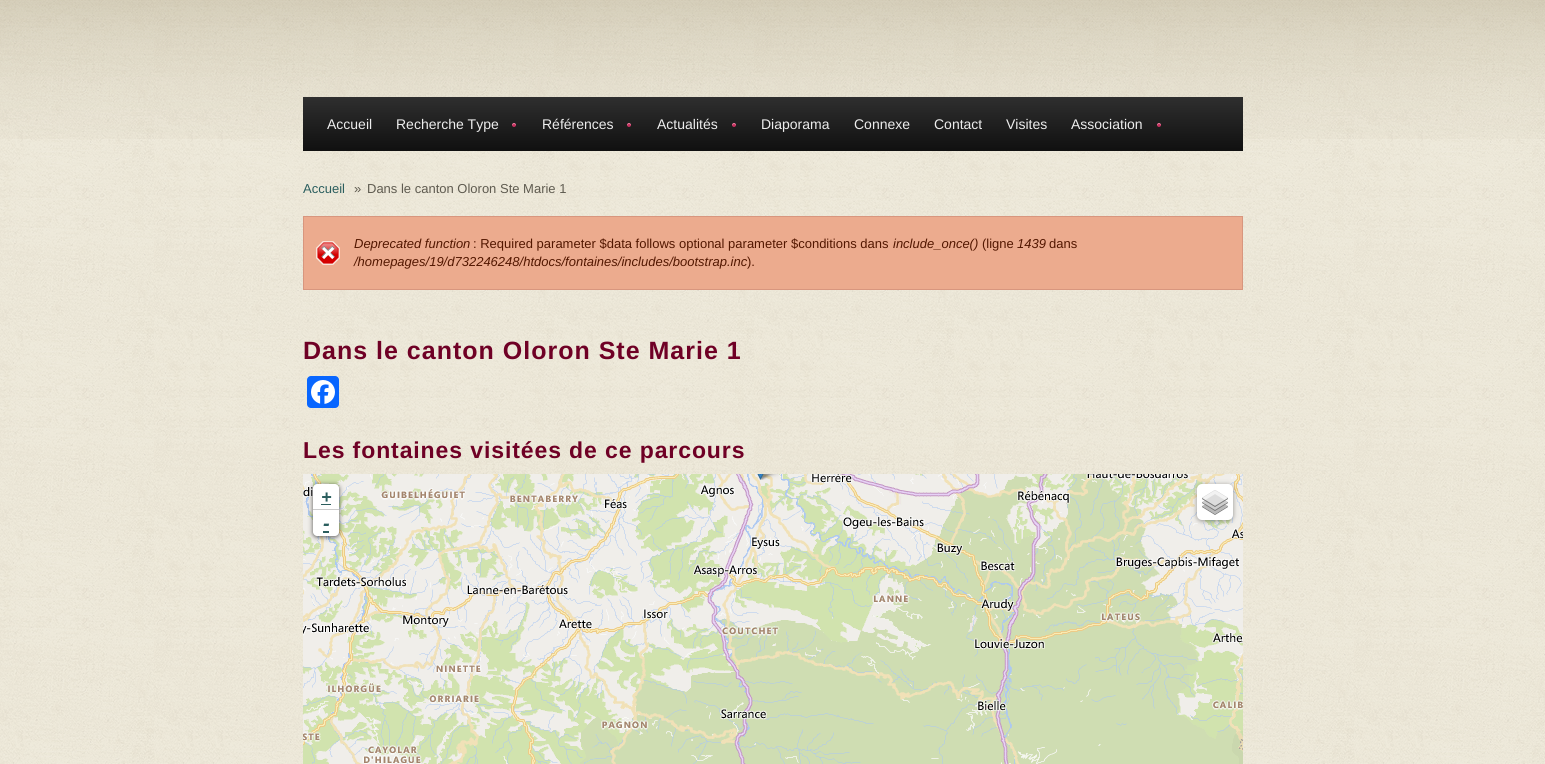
#include <cairo/cairo.h>
#include <math.h>
#include <stddef.h>

static cairo_t *cr;

static void use_color(int r, int g, int b) {
  cairo_set_source_rgb(cr, r / 255.0, g / 255.0, b / 255.0);
}

static void text(double x, double y, const char *s, const char *family, double size, int italic, int bold, int r, int g, int b) {
  cairo_select_font_face(cr, family, italic ? CAIRO_FONT_SLANT_ITALIC : CAIRO_FONT_SLANT_NORMAL,
    bold ? CAIRO_FONT_WEIGHT_BOLD : CAIRO_FONT_WEIGHT_NORMAL);
  cairo_set_font_size(cr, size);
  use_color(r, g, b);
  cairo_move_to(cr, x, y);
  cairo_show_text(cr, s);
}

static void spaced_text(double x, double y, const char *s, double letter, double word) {
  cairo_move_to(cr, x, y);
  while (*s) {
    char ch[5] = {0};
    int n = 0;
    do ch[n++] = *s++; while ((*s & 0xC0) == 0x80);
    cairo_show_text(cr, ch);
    cairo_rel_move_to(cr, letter + word * (*ch == ' '), 0);
  }
}

static void box(double x, double y, double w, double h, int r, int g, int b) {
  use_color(r, g, b);
  cairo_rectangle(cr, x, y, w, h);
  cairo_fill(cr);
}

static void round_rect(double x, double y, double w, double h, double r) {
  cairo_new_sub_path(cr);
  cairo_arc(cr, x + w - r, y + h - r, r, 0, M_PI / 2);
  cairo_arc(cr, x + r, y + h - r, r, M_PI / 2, M_PI);
  cairo_arc(cr, x + r, y + r, r, M_PI, 1.5 * M_PI);
  cairo_arc(cr, x + w - r, y + r, r, 1.5 * M_PI, 2 * M_PI);
  cairo_close_path(cr);
}

static void shadow(double x, double y, double w, double h, double r, double blur, double alpha) {
  cairo_push_group_with_content(cr, CAIRO_CONTENT_ALPHA);
  cairo_set_operator(cr, CAIRO_OPERATOR_SOURCE);
  for (int i = 15; i >= -15 && fmin(w, h) + blur * i / 3 > 0; i -= 2) {
    double e = blur * i / 6;
    cairo_set_source_rgba(cr, 0, 0, 0, alpha * erfc((i - 1) / 8.5) / 2);
    round_rect(x - e, y - e, w + 2 * e, h + 2 * e, fmax(0, fmin(r + e + blur * .6, fmin(w, h) / 2 + e)));
    cairo_fill(cr);
  }
  cairo_pattern_t *soft = cairo_pop_group(cr);
  cairo_mask(cr, soft);
  cairo_pattern_destroy(soft);
}

static void picture(const char *path, double x, double y, double w, double h) {
  cairo_surface_t *image = cairo_image_surface_create_from_png(path);
  cairo_save(cr);
  cairo_set_source_surface(cr, image, x, y);
  cairo_rectangle(cr, x, y, w, h);
  cairo_fill(cr);
  cairo_restore(cr);
  cairo_surface_destroy(image);
}

static void draw(void) {
  cairo_pattern_t *gradient;
  use_color(255, 255, 255);
  cairo_paint(cr);
  picture("img_01.png", 0, 0, 1545, 764);
  picture("img_02.png", 0, 0, 1545, 139);
  gradient = cairo_pattern_create_linear(773, 97, 773, 151);
  cairo_pattern_add_color_stop_rgba(gradient, 0, 0.184, 0.184, 0.184, 1);
  cairo_pattern_add_color_stop_rgba(gradient, 1, 0.063, 0.063, 0.063, 1);
  cairo_set_source(cr, gradient);
  cairo_pattern_destroy(gradient);
  cairo_rectangle(cr, 303, 97, 940, 54);
  cairo_fill(cr);
  picture("img_03.png", 512, 123, 4, 4);
  picture("img_03.png", 627, 123, 4, 4);
  picture("img_03.png", 732, 123, 4, 4);
  picture("img_03.png", 1157, 123, 4, 4);
  box(304, 217, 938, 72, 236, 171, 142);
  picture("img_04.png", 316, 241, 24, 24);
  cairo_rectangle(cr, 303.5, 216.5, 939, 73);
  use_color(216, 150, 126);
  cairo_set_line_width(cr, 1);
  cairo_stroke(cr);
  use_color(8, 102, 255);
  round_rect(307, 376, 32, 32, 4);
  cairo_fill(cr);
  picture("img_05.png", 311, 380, 24, 24);
  picture("img_06.png", 303, 474, 37, 203);
  picture("img_07.png", 340, 474, 256, 203);
  picture("img_08.png", 596, 474, 256, 203);
  picture("img_09.png", 852, 474, 256, 203);
  picture("img_10.png", 1108, 474, 135, 203);
  picture("img_11.png", 303, 677, 37, 87);
  picture("img_12.png", 340, 677, 256, 87);
  picture("img_13.png", 596, 677, 256, 87);
  picture("img_14.png", 852, 677, 256, 87);
  picture("img_15.png", 1108, 677, 135, 87);
  picture("img_17.png", 758, 474, 22, 6);
  picture("img_16.png", 757, 474, 7, 6);
  use_color(0, 0, 0);
  shadow(313, 485, 26, 52, 4, 2.5, 0.65);
  use_color(255, 255, 255);
  cairo_new_path(cr);
  cairo_move_to(cr, 317, 484);
  cairo_line_to(cr, 335, 484);
  cairo_curve_to(cr, 337, 484, 339, 486, 339, 488);
  cairo_line_to(cr, 339, 510);
  cairo_line_to(cr, 313, 510);
  cairo_line_to(cr, 313, 488);
  cairo_curve_to(cr, 313, 486, 315, 484, 317, 484);
  cairo_close_path(cr);
  cairo_fill(cr);
  box(313, 509, 26, 1, 204, 204, 204);
  box(321, 504, 10, 1, 43, 94, 94);
  use_color(255, 255, 255);
  cairo_new_path(cr);
  cairo_move_to(cr, 313, 510);
  cairo_line_to(cr, 339, 510);
  cairo_line_to(cr, 339, 532);
  cairo_curve_to(cr, 339, 534, 337, 536, 335, 536);
  cairo_line_to(cr, 317, 536);
  cairo_curve_to(cr, 315, 536, 313, 534, 313, 532);
  cairo_close_path(cr);
  cairo_fill(cr);
  box(323, 531, 6, 2, 43, 94, 94);
  use_color(0, 0, 0);
  shadow(1197, 485, 36, 36, 5, 2.5, 0.4);
  use_color(255, 255, 255);
  round_rect(1197, 484, 36, 36, 5);
  cairo_fill(cr);
  picture("img_18.png", 1202, 490, 26, 25);
  text(327, 129, "Accueil", "Liberation Sans", 14, 0, 0, 237, 237, 237);
  text(396, 129, "Recherche Type", "Liberation Sans", 14, 0, 0, 237, 237, 237);
  text(542, 129, "Références", "Liberation Sans", 14, 0, 0, 237, 237, 237);
  text(657, 129, "Actualités", "Liberation Sans", 14, 0, 0, 237, 237, 237);
  text(761, 129, "Diaporama", "Liberation Sans", 14, 0, 0, 237, 237, 237);
  text(854, 129, "Connexe", "Liberation Sans", 14, 0, 0, 237, 237, 237);
  text(934, 129, "Contact", "Liberation Sans", 14, 0, 0, 237, 237, 237);
  text(1006, 129, "Visites", "Liberation Sans", 14, 0, 0, 237, 237, 237);
  text(1071, 129, "Association", "Liberation Sans", 14, 0, 0, 237, 237, 237);
  text(303, 193, "Accueil", "Liberation Sans", 13, 0, 0, 43, 94, 94);
  text(354, 193, "»", "Liberation Sans", 13, 0, 0, 95, 91, 80);
  text(367, 193, "Dans le canton Oloron Ste Marie 1", "Liberation Sans", 13, 0, 0, 95, 91, 80);
  text(354, 248, "Deprecated function", "Liberation Sans", 13, 1, 0, 83, 23, 0);
  text(473, 248, ": Required parameter $data follows optional parameter $conditions dans", "Liberation Sans", 13, 0, 0, 83, 23, 0);
  text(893, 248, "include_once()", "Liberation Sans", 13, 1, 0, 83, 23, 0);
  text(982, 248, "(ligne", "Liberation Sans", 13, 0, 0, 83, 23, 0);
  text(1017, 248, "1439", "Liberation Sans", 13, 1, 0, 83, 23, 0);
  text(1049, 248, "dans", "Liberation Sans", 13, 0, 0, 83, 23, 0);
  text(354, 266, "/homepages/19/d732246248/htdocs/fontaines/includes/bootstrap.inc", "Liberation Sans", 13, 1, 0, 83, 23, 0);
  text(747, 266, ").", "Liberation Sans", 13, 0, 0, 83, 23, 0);
  cairo_select_font_face(cr, "Liberation Sans", CAIRO_FONT_SLANT_NORMAL, CAIRO_FONT_WEIGHT_BOLD);
  cairo_set_font_size(cr, 25);
  use_color(111, 0, 37);
  spaced_text(303, 359, "Dans le canton Oloron Ste Marie 1", 1, 0);
  cairo_set_font_size(cr, 23);
  spaced_text(303, 458, "Les fontaines visitées de ce parcours", 0.9, 0);
  text(321, 503, "+", "Liberation Sans", 18, 1, 1, 43, 94, 94);
  text(323, 530, "-", "Liberation Sans", 20, 1, 1, 43, 94, 94);
}

int main(void) {
  cairo_surface_t *surface = cairo_image_surface_create(CAIRO_FORMAT_RGB24, 1545, 764);
  cr = cairo_create(surface);
  cairo_font_options_t *options = cairo_font_options_create();
  cairo_font_options_set_hint_metrics(options, CAIRO_HINT_METRICS_OFF);
  cairo_font_options_set_hint_style(options, CAIRO_HINT_STYLE_NONE);
  cairo_set_font_options(cr, options);
  cairo_set_miter_limit(cr, 4);
  draw();
  cairo_surface_write_to_png(surface, "out.png");
  cairo_font_options_destroy(options);
  cairo_destroy(cr);
  cairo_surface_destroy(surface);
  return 0;
}
